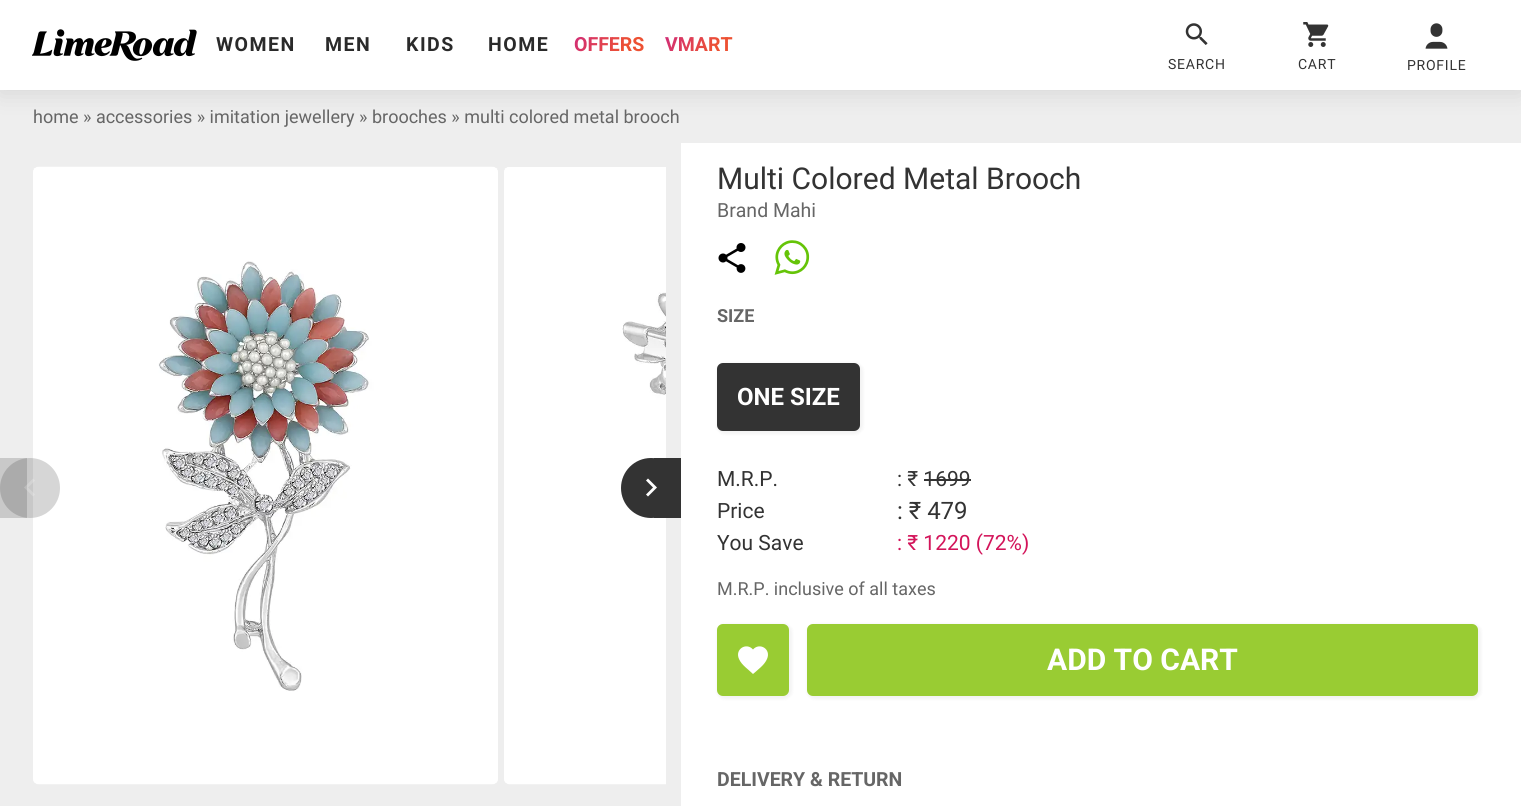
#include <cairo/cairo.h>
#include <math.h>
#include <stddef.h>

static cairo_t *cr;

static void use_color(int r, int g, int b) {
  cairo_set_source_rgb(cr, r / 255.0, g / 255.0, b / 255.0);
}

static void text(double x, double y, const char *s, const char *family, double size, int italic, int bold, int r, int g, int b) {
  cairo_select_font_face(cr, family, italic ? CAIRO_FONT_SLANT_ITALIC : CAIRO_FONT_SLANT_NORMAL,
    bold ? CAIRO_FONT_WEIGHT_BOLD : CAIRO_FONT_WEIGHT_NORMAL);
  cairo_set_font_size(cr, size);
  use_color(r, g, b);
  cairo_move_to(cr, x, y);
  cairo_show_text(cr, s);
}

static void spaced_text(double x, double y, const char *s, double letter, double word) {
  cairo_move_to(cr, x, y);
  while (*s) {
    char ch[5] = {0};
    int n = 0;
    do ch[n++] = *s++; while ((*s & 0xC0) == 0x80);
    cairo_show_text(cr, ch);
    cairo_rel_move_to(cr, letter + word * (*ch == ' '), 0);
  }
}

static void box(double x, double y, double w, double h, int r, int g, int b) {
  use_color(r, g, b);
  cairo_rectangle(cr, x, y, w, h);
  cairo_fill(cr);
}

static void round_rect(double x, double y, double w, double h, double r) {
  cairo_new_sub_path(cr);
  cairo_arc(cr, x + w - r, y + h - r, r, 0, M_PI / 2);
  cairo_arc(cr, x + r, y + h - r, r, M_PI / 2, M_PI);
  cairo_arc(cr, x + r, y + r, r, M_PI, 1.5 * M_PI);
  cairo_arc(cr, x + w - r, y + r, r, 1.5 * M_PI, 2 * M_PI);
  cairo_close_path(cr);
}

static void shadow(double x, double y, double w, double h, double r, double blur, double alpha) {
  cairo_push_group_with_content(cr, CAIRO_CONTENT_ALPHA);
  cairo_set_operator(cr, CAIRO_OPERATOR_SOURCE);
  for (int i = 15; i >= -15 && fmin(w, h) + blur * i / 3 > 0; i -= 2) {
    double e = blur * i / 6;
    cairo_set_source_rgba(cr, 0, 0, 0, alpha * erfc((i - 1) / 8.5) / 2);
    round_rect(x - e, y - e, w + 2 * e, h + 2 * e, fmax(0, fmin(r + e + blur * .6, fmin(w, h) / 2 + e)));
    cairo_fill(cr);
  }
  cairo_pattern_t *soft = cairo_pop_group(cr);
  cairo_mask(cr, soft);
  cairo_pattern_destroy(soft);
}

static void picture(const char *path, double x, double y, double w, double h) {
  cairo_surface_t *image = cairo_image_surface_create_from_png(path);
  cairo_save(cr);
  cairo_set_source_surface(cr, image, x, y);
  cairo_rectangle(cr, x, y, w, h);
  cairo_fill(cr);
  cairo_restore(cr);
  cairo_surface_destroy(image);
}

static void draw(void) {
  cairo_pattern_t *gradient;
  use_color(238, 238, 238);
  cairo_paint(cr);
  use_color(85, 85, 85);
  shadow(0, 3, 1521, 90, 0, 12, 0.16);
  box(0, 0, 1521, 90, 255, 255, 255);
  picture("img_01.png", 32, 29, 165, 32);
  picture("img_02.png", 1185, 23, 23, 22);
  picture("img_03.png", 1303, 22, 26, 25);
  picture("img_04.png", 1425, 23, 23, 26);
  box(0, 458, 27, 60, 201, 201, 201);
  picture("img_05.png", 33, 166, 465, 619);
  picture("img_06.png", 33, 168, 465, 615);
  cairo_set_source_rgba(cr, 0.2, 0.2, 0.2, 0.2);
  cairo_arc(cr, 30, 488, 30, 0, 2 * M_PI);
  cairo_fill(cr);
  cairo_set_source_rgba(cr, 1, 1, 1, 0.2);
  cairo_new_path(cr);
  cairo_move_to(cr, 35, 480.5);
  cairo_line_to(cr, 33, 478.5);
  cairo_line_to(cr, 24, 487.5);
  cairo_line_to(cr, 33, 496.5);
  cairo_line_to(cr, 35, 494.5);
  cairo_line_to(cr, 28, 487.5);
  cairo_close_path(cr);
  cairo_fill(cr);
  picture("img_07.png", 504, 167, 162, 618);
  picture("img_08.png", 504, 168, 2, 615);
  box(654, 458, 27, 60, 51, 51, 51);
  cairo_arc(cr, 651, 488, 30, 0, 2 * M_PI);
  cairo_fill(cr);
  use_color(255, 255, 255);
  cairo_new_path(cr);
  cairo_move_to(cr, 648, 478.5);
  cairo_line_to(cr, 646, 480.5);
  cairo_line_to(cr, 653, 487.5);
  cairo_line_to(cr, 646, 494.5);
  cairo_line_to(cr, 648, 496.5);
  cairo_line_to(cr, 657, 487.5);
  cairo_close_path(cr);
  cairo_fill(cr);
  box(681, 143, 840, 663, 255, 255, 255);
  picture("img_09.png", 718, 243, 28, 30);
  picture("img_10.png", 774, 240, 36, 35);
  use_color(0, 0, 0);
  shadow(717, 363, 146, 71, 8, 1.5, 0.05);
  use_color(51, 51, 51);
  round_rect(718, 364, 141, 66, 5);
  cairo_fill_preserve(cr);
  cairo_stroke(cr);
  box(924, 479, 47, 2, 51, 51, 51);
  use_color(0, 0, 0);
  shadow(717, 624, 75, 75, 8, 1.5, 0.05);
  use_color(153, 204, 51);
  round_rect(717, 624, 72, 72, 6);
  cairo_fill(cr);
  use_color(255, 255, 255);
  cairo_new_path(cr);
  cairo_move_to(cr, 753, 674);
  cairo_curve_to(cr, 748.5, 669.5, 741.5, 665, 739, 659);
  cairo_curve_to(cr, 734.5, 649, 746.5, 642, 753, 649.5);
  cairo_curve_to(cr, 759.5, 642, 771.5, 649, 767, 659);
  cairo_curve_to(cr, 764.5, 665, 758, 669.5, 753, 674);
  cairo_close_path(cr);
  cairo_fill(cr);
  use_color(0, 0, 0);
  shadow(807, 624, 674, 75, 8, 1.5, 0.05);
  use_color(153, 204, 51);
  round_rect(807, 624, 671, 72, 6);
  cairo_fill(cr);
  cairo_select_font_face(cr, "Roboto", CAIRO_FONT_SLANT_NORMAL, CAIRO_FONT_WEIGHT_BOLD);
  cairo_set_font_size(cr, 19.5);
  use_color(42, 42, 42);
  spaced_text(216, 51, "WOMEN", 1.5, 0);
  spaced_text(325, 51, "MEN", 1.5, 0);
  spaced_text(406, 51, "KIDS", 1.5, 0);
  spaced_text(488, 51, "HOME", 1.5, 0);
  gradient = cairo_pattern_create_linear(576, 23, 639, 63);
  cairo_pattern_add_color_stop_rgba(gradient, 0, 0.808, 0.161, 0.494, 1);
  cairo_pattern_add_color_stop_rgba(gradient, 0.73, 0.929, 0.318, 0.2, 1);
  cairo_set_source(cr, gradient);
  cairo_pattern_destroy(gradient);
  cairo_move_to(cr, 574, 51);
  cairo_show_text(cr, "OFFERS");
  gradient = cairo_pattern_create_linear(667, 24, 728, 63);
  cairo_pattern_add_color_stop_rgba(gradient, 0, 0.808, 0.161, 0.494, 1);
  cairo_pattern_add_color_stop_rgba(gradient, 0.73, 0.929, 0.318, 0.2, 1);
  cairo_set_source(cr, gradient);
  cairo_pattern_destroy(gradient);
  cairo_move_to(cr, 665, 51);
  cairo_show_text(cr, "VMART");
  cairo_select_font_face(cr, "Roboto", CAIRO_FONT_SLANT_NORMAL, CAIRO_FONT_WEIGHT_NORMAL);
  cairo_set_font_size(cr, 14);
  use_color(51, 51, 51);
  spaced_text(1168, 69, "SEARCH", 0.75, 0);
  spaced_text(1298, 69, "CART", 0.75, 0);
  spaced_text(1407, 70, "PROFILE", 0.75, 0);
  text(33, 123, "home » accessories » imitation jewellery » brooches » multi colored metal brooch", "Roboto", 18, 0, 0, 102, 102, 102);
  text(717, 189, "Multi Colored Metal Brooch", "Roboto", 30, 0, 0, 51, 51, 51);
  text(717, 217, "Brand Mahi", "Roboto", 19.5, 0, 0, 102, 102, 102);
  text(717, 322, "SIZE", "Roboto", 18, 0, 1, 102, 102, 102);
  text(737, 405, "ONE SIZE", "Roboto", 24, 0, 1, 255, 255, 255);
  text(717, 486, "M.R.P.", "Roboto", 21, 0, 0, 51, 51, 51);
  text(897, 486, ": ₹ 1699", "Roboto", 21, 0, 0, 51, 51, 51);
  text(717, 518, "Price", "Roboto", 21, 0, 0, 51, 51, 51);
  text(897, 519, ": ₹ 479", "Roboto", 24, 0, 0, 51, 51, 51);
  text(717, 550, "You Save", "Roboto", 21, 0, 0, 51, 51, 51);
  text(897, 550, ": ₹ 1220 (72%)", "Roboto", 21, 0, 0, 211, 20, 90);
  text(717, 595, "M.R.P. inclusive of all taxes", "Roboto", 18, 0, 0, 102, 102, 102);
  text(1047, 670, "ADD TO CART", "Roboto", 30, 0, 1, 255, 255, 255);
  text(717, 786, "DELIVERY & RETURN", "Roboto", 19.5, 0, 1, 102, 102, 102);
}

int main(void) {
  cairo_surface_t *surface = cairo_image_surface_create(CAIRO_FORMAT_RGB24, 1521, 806);
  cr = cairo_create(surface);
  cairo_font_options_t *options = cairo_font_options_create();
  cairo_font_options_set_hint_metrics(options, CAIRO_HINT_METRICS_OFF);
  cairo_font_options_set_hint_style(options, CAIRO_HINT_STYLE_NONE);
  cairo_set_font_options(cr, options);
  cairo_set_miter_limit(cr, 4);
  draw();
  cairo_surface_write_to_png(surface, "out.png");
  cairo_font_options_destroy(options);
  cairo_destroy(cr);
  cairo_surface_destroy(surface);
  return 0;
}
